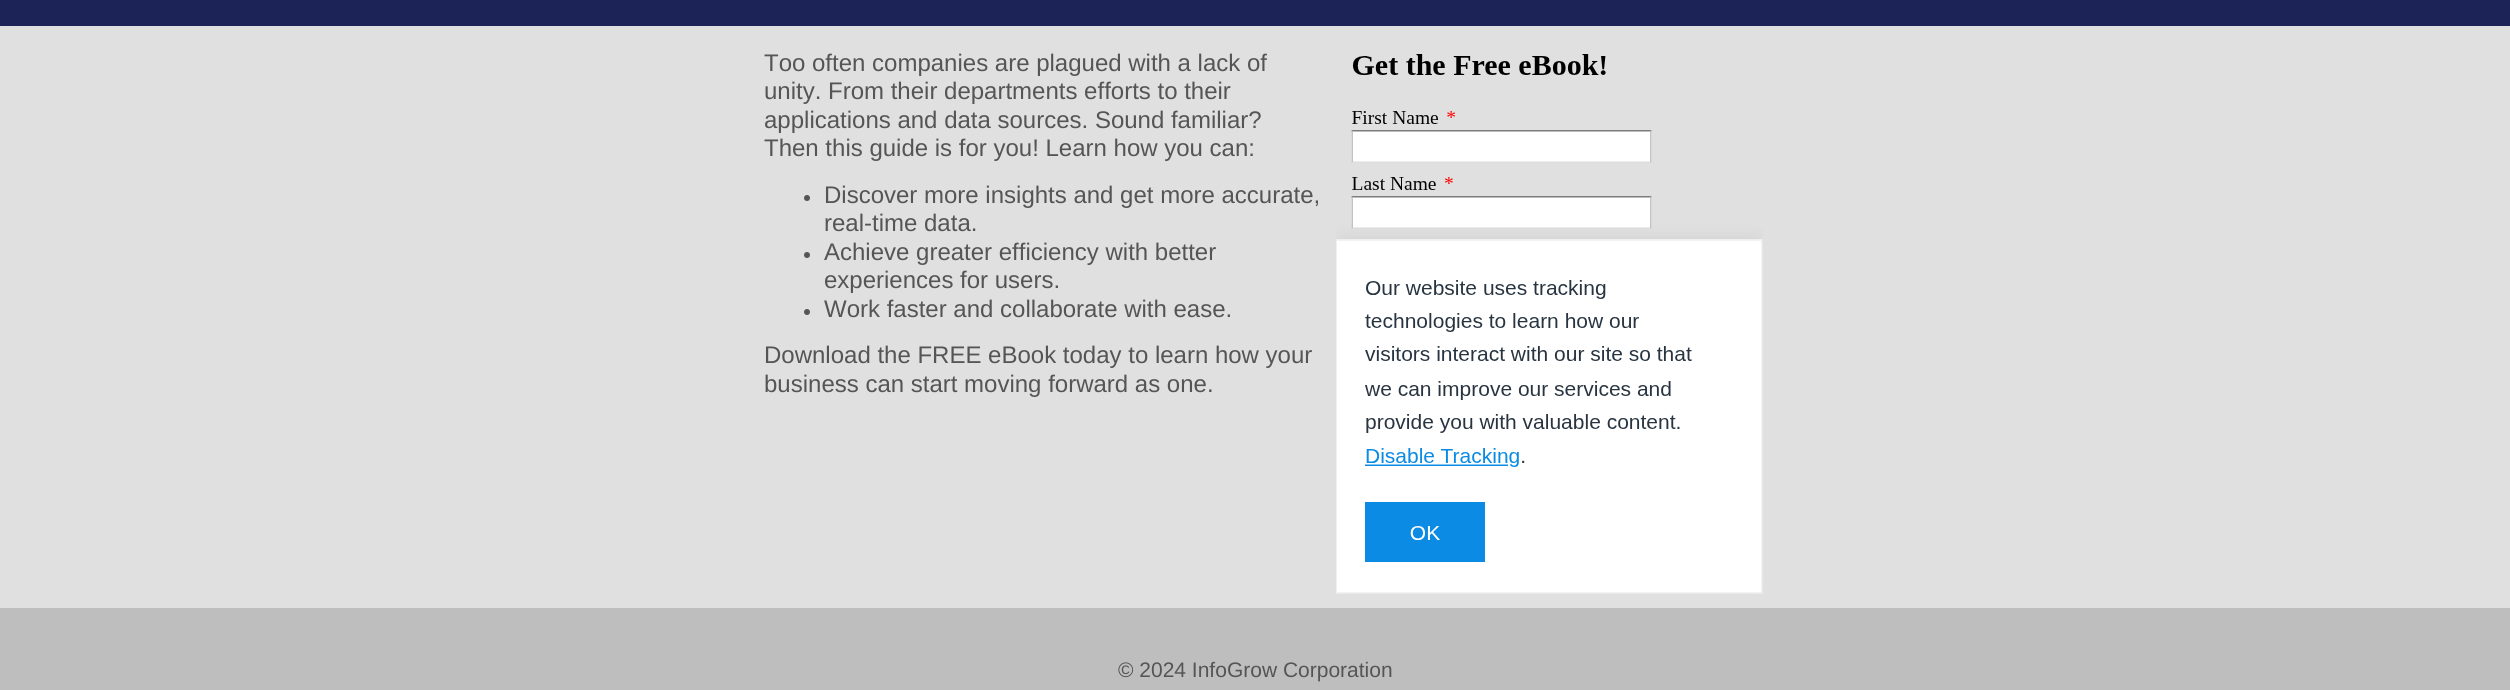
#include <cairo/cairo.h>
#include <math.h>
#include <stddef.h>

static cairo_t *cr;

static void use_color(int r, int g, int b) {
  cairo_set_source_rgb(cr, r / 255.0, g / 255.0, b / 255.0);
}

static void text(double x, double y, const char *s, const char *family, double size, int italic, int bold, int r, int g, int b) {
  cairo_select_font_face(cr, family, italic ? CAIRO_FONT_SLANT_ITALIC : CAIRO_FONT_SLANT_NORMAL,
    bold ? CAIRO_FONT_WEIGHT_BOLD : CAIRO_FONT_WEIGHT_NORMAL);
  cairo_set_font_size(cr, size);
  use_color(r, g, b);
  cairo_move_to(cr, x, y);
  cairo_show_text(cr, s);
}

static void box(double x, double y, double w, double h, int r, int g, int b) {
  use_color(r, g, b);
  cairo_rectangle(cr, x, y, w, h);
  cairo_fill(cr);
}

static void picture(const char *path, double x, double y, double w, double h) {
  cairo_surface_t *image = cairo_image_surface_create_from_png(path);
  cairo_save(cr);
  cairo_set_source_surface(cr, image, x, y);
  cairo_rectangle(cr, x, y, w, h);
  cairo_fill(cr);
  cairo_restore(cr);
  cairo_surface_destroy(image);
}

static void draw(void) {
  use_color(224, 224, 224);
  cairo_paint(cr);
  box(0, 0, 2510, 26, 28, 35, 87);
  use_color(85, 85, 85);
  cairo_arc(cr, 807, 198, 3, 0, 2 * M_PI);
  cairo_fill(cr);
  cairo_arc(cr, 807, 255, 3, 0, 2 * M_PI);
  cairo_fill(cr);
  cairo_arc(cr, 807, 312, 3, 0, 2 * M_PI);
  cairo_fill(cr);
  picture("img_01.png", 1336, 54, 427, 540);
  box(0, 608, 2510, 82, 190, 190, 190);
  text(764, 71, "Too often companies are plagued with a lack of", "Liberation Sans", 24, 0, 0, 85, 85, 85);
  text(764, 99, "unity. From their departments efforts to their", "Liberation Sans", 24, 0, 0, 85, 85, 85);
  text(764, 128, "applications and data sources. Sound familiar?", "Liberation Sans", 24, 0, 0, 85, 85, 85);
  text(764, 156, "Then this guide is for you! Learn how you can:", "Liberation Sans", 24, 0, 0, 85, 85, 85);
  text(824, 203, "Discover more insights and get more accurate,", "Liberation Sans", 24, 0, 0, 85, 85, 85);
  text(824, 231, "real-time data.", "Liberation Sans", 24, 0, 0, 85, 85, 85);
  text(824, 260, "Achieve greater efficiency with better", "Liberation Sans", 24, 0, 0, 85, 85, 85);
  text(824, 288, "experiences for users.", "Liberation Sans", 24, 0, 0, 85, 85, 85);
  text(824, 317, "Work faster and collaborate with ease.", "Liberation Sans", 24, 0, 0, 85, 85, 85);
  text(764, 363, "Download the FREE eBook today to learn how your", "Liberation Sans", 24, 0, 0, 85, 85, 85);
  text(764, 392, "business can start moving forward as one.", "Liberation Sans", 24, 0, 0, 85, 85, 85);
  text(1118, 677, "© 2024 InfoGrow Corporation", "Liberation Sans", 21, 0, 0, 85, 85, 85);
}

int main(void) {
  cairo_surface_t *surface = cairo_image_surface_create(CAIRO_FORMAT_RGB24, 2510, 690);
  cr = cairo_create(surface);
  cairo_font_options_t *options = cairo_font_options_create();
  cairo_font_options_set_hint_metrics(options, CAIRO_HINT_METRICS_OFF);
  cairo_font_options_set_hint_style(options, CAIRO_HINT_STYLE_NONE);
  cairo_set_font_options(cr, options);
  cairo_set_miter_limit(cr, 4);
  draw();
  cairo_surface_write_to_png(surface, "out.png");
  cairo_font_options_destroy(options);
  cairo_destroy(cr);
  cairo_surface_destroy(surface);
  return 0;
}
